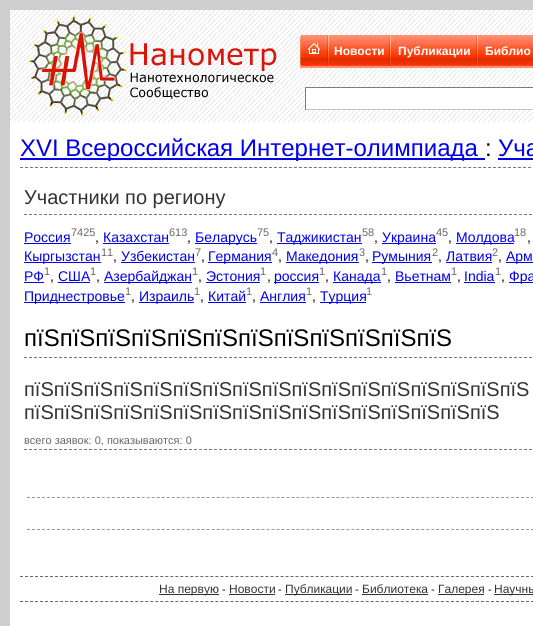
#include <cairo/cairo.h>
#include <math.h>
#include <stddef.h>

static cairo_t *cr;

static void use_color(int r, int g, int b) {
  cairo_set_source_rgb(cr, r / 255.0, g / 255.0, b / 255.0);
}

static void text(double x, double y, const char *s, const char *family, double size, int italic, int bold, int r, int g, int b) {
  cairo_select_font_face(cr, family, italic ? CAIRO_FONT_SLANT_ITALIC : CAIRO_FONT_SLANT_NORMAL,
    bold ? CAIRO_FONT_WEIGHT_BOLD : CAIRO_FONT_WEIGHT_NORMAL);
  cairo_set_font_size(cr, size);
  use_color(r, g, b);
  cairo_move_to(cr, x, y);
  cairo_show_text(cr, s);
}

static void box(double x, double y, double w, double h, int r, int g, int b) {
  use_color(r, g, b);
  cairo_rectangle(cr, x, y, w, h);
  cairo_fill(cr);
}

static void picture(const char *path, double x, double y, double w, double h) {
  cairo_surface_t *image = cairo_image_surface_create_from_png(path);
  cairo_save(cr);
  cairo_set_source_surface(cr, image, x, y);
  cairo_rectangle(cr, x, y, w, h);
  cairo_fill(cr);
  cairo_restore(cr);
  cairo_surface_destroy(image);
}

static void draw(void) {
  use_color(207, 206, 206);
  cairo_paint(cr);
  box(10, 122, 523, 504, 255, 255, 255);
  picture("img_01.png", 10, 10, 523, 112);
  picture("img_02.png", 29, 15, 248, 101);
  picture("img_03.png", 300, 35, 233, 33);
  picture("img_04.png", 300, 35, 24, 31);
  picture("img_05.png", 326, 35, 4, 31);
  picture("img_05.png", 388, 35, 4, 31);
  picture("img_05.png", 475, 35, 4, 31);
  box(306, 88, 227, 21, 255, 255, 255);
  box(305, 87, 228, 1, 124, 124, 124);
  box(305, 109, 228, 1, 195, 195, 195);
  box(305, 87, 1, 23, 124, 124, 124);
  cairo_new_path(cr);
  cairo_move_to(cr, 20, 167.5);
  cairo_line_to(cr, 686, 167.5);
  use_color(119, 119, 119);
  cairo_set_line_width(cr, 1);
  cairo_set_dash(cr, (double[]){3, 1.98}, 2, 0);
  cairo_stroke(cr);
  box(20, 158, 465, 2, 0, 0, 238);
  box(498, 158, 35, 2, 0, 0, 238);
  cairo_new_path(cr);
  cairo_move_to(cr, 24, 214.5);
  cairo_line_to(cr, 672, 214.5);
  use_color(119, 119, 119);
  cairo_set_dash(cr, (double[]){3, 2}, 2, 0);
  cairo_stroke(cr);
  box(24, 243, 47, 1, 0, 0, 238);
  box(103, 243, 66, 1, 0, 0, 238);
  box(195, 243, 62, 1, 0, 0, 238);
  box(277, 243, 85, 1, 0, 0, 238);
  box(382, 243, 54, 1, 0, 0, 238);
  box(456, 243, 58, 1, 0, 0, 238);
  box(24, 262, 77, 1, 0, 0, 238);
  box(121, 262, 74, 1, 0, 0, 238);
  box(208, 262, 64, 1, 0, 0, 238);
  box(286, 262, 73, 1, 0, 0, 238);
  box(372, 262, 60, 1, 0, 0, 238);
  box(446, 262, 46, 1, 0, 0, 238);
  box(506, 262, 27, 1, 0, 0, 238);
  box(24, 282, 20, 1, 0, 0, 238);
  box(58, 282, 32, 1, 0, 0, 238);
  box(104, 282, 88, 1, 0, 0, 238);
  box(206, 282, 54, 1, 0, 0, 238);
  box(274, 282, 45, 1, 0, 0, 238);
  box(333, 282, 48, 1, 0, 0, 238);
  box(395, 282, 56, 1, 0, 0, 238);
  box(464, 282, 31, 1, 0, 0, 238);
  box(509, 282, 24, 1, 0, 0, 238);
  box(24, 302, 101, 1, 0, 0, 238);
  box(139, 302, 55, 1, 0, 0, 238);
  box(208, 302, 38, 1, 0, 0, 238);
  box(260, 302, 46, 1, 0, 0, 238);
  box(320, 302, 46, 1, 0, 0, 238);
  cairo_new_path(cr);
  cairo_move_to(cr, 24, 357.5);
  cairo_line_to(cr, 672, 357.5);
  use_color(119, 119, 119);
  cairo_stroke(cr);
  cairo_new_path(cr);
  cairo_move_to(cr, 24, 449.5);
  cairo_line_to(cr, 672, 449.5);
  cairo_stroke(cr);
  cairo_new_path(cr);
  cairo_move_to(cr, 27, 497.5);
  cairo_line_to(cr, 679, 497.5);
  use_color(153, 153, 153);
  cairo_set_dash(cr, (double[]){3, 1.99}, 2, 0);
  cairo_stroke(cr);
  cairo_new_path(cr);
  cairo_move_to(cr, 27, 529.5);
  cairo_line_to(cr, 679, 529.5);
  cairo_stroke(cr);
  cairo_new_path(cr);
  cairo_move_to(cr, 20, 576.5);
  cairo_line_to(cr, 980, 576.5);
  use_color(102, 102, 102);
  cairo_set_dash(cr, (double[]){3, 2.01}, 2, 0);
  cairo_stroke(cr);
  cairo_new_path(cr);
  cairo_move_to(cr, 20, 601.5);
  cairo_line_to(cr, 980, 601.5);
  cairo_stroke(cr);
  box(159, 594, 60, 1, 51, 51, 51);
  box(229, 594, 46, 1, 51, 51, 51);
  box(285, 594, 67, 1, 51, 51, 51);
  box(362, 594, 66, 1, 51, 51, 51);
  box(438, 594, 46, 1, 51, 51, 51);
  box(494, 594, 39, 1, 51, 51, 51);
  text(334, 55, "Новости", "Liberation Sans", 12, 0, 1, 255, 255, 255);
  text(398, 55, "Публикации", "Liberation Sans", 12, 0, 1, 255, 255, 255);
  text(485, 55, "Библио", "Liberation Sans", 12, 0, 1, 255, 255, 255);
  text(20, 156, "XVI Всероссийская Интернет-олимпиада", "Liberation Sans", 24, 0, 0, 0, 0, 238);
  text(485, 156, ":", "Liberation Sans", 24, 0, 0, 0, 0, 0);
  text(498, 156, "Уча", "Liberation Sans", 24, 0, 0, 0, 0, 238);
  text(24, 204, "Участники по региону", "Liberation Sans", 20, 0, 0, 51, 51, 51);
  text(24, 242, "Россия", "Liberation Sans", 14, 0, 0, 0, 0, 238);
  text(71, 236, "7425", "Liberation Sans", 11, 0, 0, 102, 102, 102);
  text(95, 242, ",", "Liberation Sans", 14, 0, 0, 0, 0, 0);
  text(103, 242, "Казахстан", "Liberation Sans", 14, 0, 0, 0, 0, 238);
  text(169, 236, "613", "Liberation Sans", 11, 0, 0, 102, 102, 102);
  text(187, 242, ",", "Liberation Sans", 14, 0, 0, 0, 0, 0);
  text(195, 242, "Беларусь", "Liberation Sans", 14, 0, 0, 0, 0, 238);
  text(257, 236, "75", "Liberation Sans", 11, 0, 0, 102, 102, 102);
  text(269, 242, ",", "Liberation Sans", 14, 0, 0, 0, 0, 0);
  text(277, 242, "Таджикистан", "Liberation Sans", 14, 0, 0, 0, 0, 238);
  text(362, 236, "58", "Liberation Sans", 11, 0, 0, 102, 102, 102);
  text(374, 242, ",", "Liberation Sans", 14, 0, 0, 0, 0, 0);
  text(382, 242, "Украина", "Liberation Sans", 14, 0, 0, 0, 0, 238);
  text(436, 236, "45", "Liberation Sans", 11, 0, 0, 102, 102, 102);
  text(448, 242, ",", "Liberation Sans", 14, 0, 0, 0, 0, 0);
  text(456, 242, "Молдова", "Liberation Sans", 14, 0, 0, 0, 0, 238);
  text(514, 236, "18", "Liberation Sans", 11, 0, 0, 102, 102, 102);
  text(527, 242, ",", "Liberation Sans", 14, 0, 0, 0, 0, 0);
  text(24, 261, "Кыргызстан", "Liberation Sans", 14, 0, 0, 0, 0, 238);
  text(101, 256, "11", "Liberation Sans", 11, 0, 0, 102, 102, 102);
  text(113, 261, ",", "Liberation Sans", 14, 0, 0, 0, 0, 0);
  text(121, 261, "Узбекистан", "Liberation Sans", 14, 0, 0, 0, 0, 238);
  text(195, 256, "7", "Liberation Sans", 11, 0, 0, 102, 102, 102);
  text(201, 261, ",", "Liberation Sans", 14, 0, 0, 0, 0, 0);
  text(208, 261, "Германия", "Liberation Sans", 14, 0, 0, 0, 0, 238);
  text(272, 256, "4", "Liberation Sans", 11, 0, 0, 102, 102, 102);
  text(278, 261, ",", "Liberation Sans", 14, 0, 0, 0, 0, 0);
  text(286, 261, "Македония", "Liberation Sans", 14, 0, 0, 0, 0, 238);
  text(359, 256, "3", "Liberation Sans", 11, 0, 0, 102, 102, 102);
  text(365, 261, ",", "Liberation Sans", 14, 0, 0, 0, 0, 0);
  text(372, 261, "Румыния", "Liberation Sans", 14, 0, 0, 0, 0, 238);
  text(432, 256, "2", "Liberation Sans", 11, 0, 0, 102, 102, 102);
  text(438, 261, ",", "Liberation Sans", 14, 0, 0, 0, 0, 0);
  text(446, 261, "Латвия", "Liberation Sans", 14, 0, 0, 0, 0, 238);
  text(492, 256, "2", "Liberation Sans", 11, 0, 0, 102, 102, 102);
  text(498, 261, ",", "Liberation Sans", 14, 0, 0, 0, 0, 0);
  text(506, 261, "Арм", "Liberation Sans", 14, 0, 0, 0, 0, 238);
  text(24, 281, "РФ", "Liberation Sans", 14, 0, 0, 0, 0, 238);
  text(44, 275, "1", "Liberation Sans", 11, 0, 0, 102, 102, 102);
  text(50, 281, ",", "Liberation Sans", 14, 0, 0, 0, 0, 0);
  text(58, 281, "США", "Liberation Sans", 14, 0, 0, 0, 0, 238);
  text(90, 275, "1", "Liberation Sans", 11, 0, 0, 102, 102, 102);
  text(96, 281, ",", "Liberation Sans", 14, 0, 0, 0, 0, 0);
  text(104, 281, "Азербайджан", "Liberation Sans", 14, 0, 0, 0, 0, 238);
  text(192, 275, "1", "Liberation Sans", 11, 0, 0, 102, 102, 102);
  text(198, 281, ",", "Liberation Sans", 14, 0, 0, 0, 0, 0);
  text(206, 281, "Эстония", "Liberation Sans", 14, 0, 0, 0, 0, 238);
  text(260, 275, "1", "Liberation Sans", 11, 0, 0, 102, 102, 102);
  text(267, 281, ",", "Liberation Sans", 14, 0, 0, 0, 0, 0);
  text(274, 281, "россия", "Liberation Sans", 14, 0, 0, 0, 0, 238);
  text(319, 275, "1", "Liberation Sans", 11, 0, 0, 102, 102, 102);
  text(325, 281, ",", "Liberation Sans", 14, 0, 0, 0, 0, 0);
  text(333, 281, "Канада", "Liberation Sans", 14, 0, 0, 0, 0, 238);
  text(381, 275, "1", "Liberation Sans", 11, 0, 0, 102, 102, 102);
  text(387, 281, ",", "Liberation Sans", 14, 0, 0, 0, 0, 0);
  text(395, 281, "Вьетнам", "Liberation Sans", 14, 0, 0, 0, 0, 238);
  text(451, 275, "1", "Liberation Sans", 11, 0, 0, 102, 102, 102);
  text(457, 281, ",", "Liberation Sans", 14, 0, 0, 0, 0, 0);
  text(464, 281, "India", "Liberation Sans", 14, 0, 0, 0, 0, 238);
  text(495, 275, "1", "Liberation Sans", 11, 0, 0, 102, 102, 102);
  text(501, 281, ",", "Liberation Sans", 14, 0, 0, 0, 0, 0);
  text(509, 281, "Фра", "Liberation Sans", 14, 0, 0, 0, 0, 238);
  text(24, 301, "Приднестровье", "Liberation Sans", 14, 0, 0, 0, 0, 238);
  text(125, 295, "1", "Liberation Sans", 11, 0, 0, 102, 102, 102);
  text(131, 301, ",", "Liberation Sans", 14, 0, 0, 0, 0, 0);
  text(139, 301, "Израиль", "Liberation Sans", 14, 0, 0, 0, 0, 238);
  text(194, 295, "1", "Liberation Sans", 11, 0, 0, 102, 102, 102);
  text(200, 301, ",", "Liberation Sans", 14, 0, 0, 0, 0, 0);
  text(208, 301, "Китай", "Liberation Sans", 14, 0, 0, 0, 0, 238);
  text(246, 295, "1", "Liberation Sans", 11, 0, 0, 102, 102, 102);
  text(252, 301, ",", "Liberation Sans", 14, 0, 0, 0, 0, 0);
  text(260, 301, "Англия", "Liberation Sans", 14, 0, 0, 0, 0, 238);
  text(306, 295, "1", "Liberation Sans", 11, 0, 0, 102, 102, 102);
  text(312, 301, ",", "Liberation Sans", 14, 0, 0, 0, 0, 0);
  text(320, 301, "Турция", "Liberation Sans", 14, 0, 0, 0, 0, 238);
  text(366, 295, "1", "Liberation Sans", 11, 0, 0, 102, 102, 102);
  text(24, 346, "пїЅпїЅпїЅпїЅпїЅпїЅпїЅпїЅпїЅпїЅпїЅпїЅ", "Liberation Sans", 24, 0, 0, 0, 0, 0);
  text(24, 396, "пїЅпїЅпїЅпїЅпїЅпїЅпїЅпїЅпїЅпїЅпїЅпїЅпїЅпїЅпїЅпїЅпїЅ", "Liberation Sans", 20, 0, 0, 51, 51, 51);
  text(24, 419, "пїЅпїЅпїЅпїЅпїЅпїЅпїЅпїЅпїЅпїЅпїЅпїЅпїЅпїЅпїЅпїЅ", "Liberation Sans", 20, 0, 0, 51, 51, 51);
  text(24, 444, "всего заявок: 0, показываются: 0", "Liberation Sans", 11, 0, 0, 102, 102, 102);
  text(159, 593, "На первую", "Liberation Sans", 12, 0, 0, 51, 51, 51);
  text(222, 593, "-", "Liberation Sans", 11, 0, 0, 0, 0, 0);
  text(229, 593, "Новости", "Liberation Sans", 12, 0, 0, 51, 51, 51);
  text(278, 593, "-", "Liberation Sans", 11, 0, 0, 0, 0, 0);
  text(285, 593, "Публикации", "Liberation Sans", 12, 0, 0, 51, 51, 51);
  text(355, 593, "-", "Liberation Sans", 11, 0, 0, 0, 0, 0);
  text(362, 593, "Библиотека", "Liberation Sans", 12, 0, 0, 51, 51, 51);
  text(431, 593, "-", "Liberation Sans", 11, 0, 0, 0, 0, 0);
  text(438, 593, "Галерея", "Liberation Sans", 12, 0, 0, 51, 51, 51);
  text(488, 593, "-", "Liberation Sans", 11, 0, 0, 0, 0, 0);
  text(494, 593, "Научны", "Liberation Sans", 12, 0, 0, 51, 51, 51);
}

int main(void) {
  cairo_surface_t *surface = cairo_image_surface_create(CAIRO_FORMAT_RGB24, 533, 626);
  cr = cairo_create(surface);
  cairo_font_options_t *options = cairo_font_options_create();
  cairo_font_options_set_hint_metrics(options, CAIRO_HINT_METRICS_OFF);
  cairo_font_options_set_hint_style(options, CAIRO_HINT_STYLE_NONE);
  cairo_set_font_options(cr, options);
  cairo_set_miter_limit(cr, 4);
  draw();
  cairo_surface_write_to_png(surface, "out.png");
  cairo_font_options_destroy(options);
  cairo_destroy(cr);
  cairo_surface_destroy(surface);
  return 0;
}
